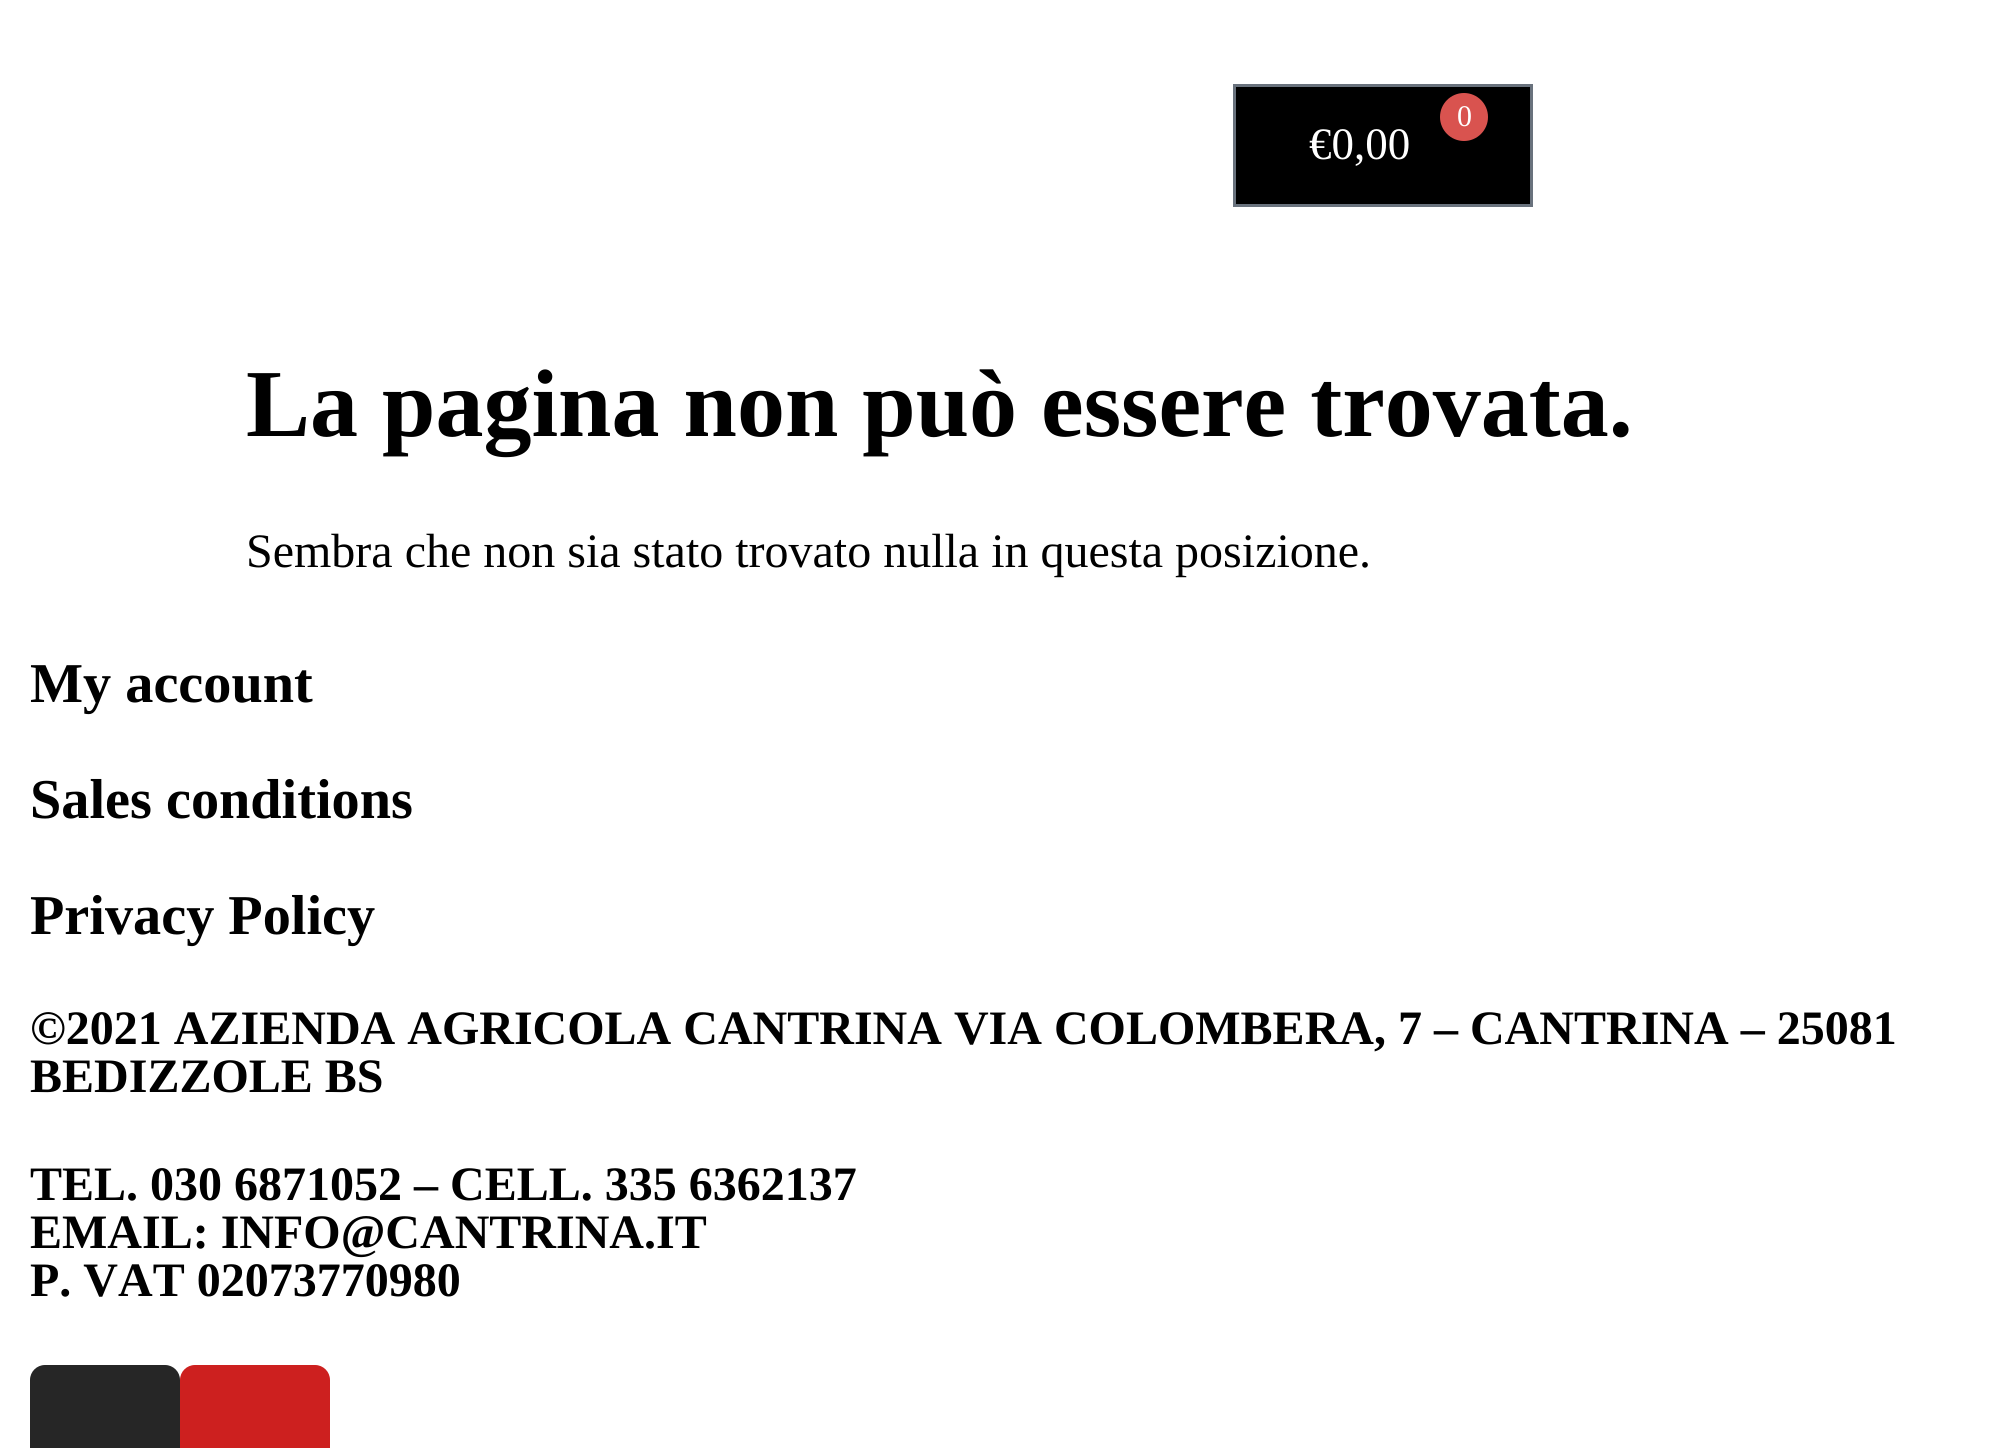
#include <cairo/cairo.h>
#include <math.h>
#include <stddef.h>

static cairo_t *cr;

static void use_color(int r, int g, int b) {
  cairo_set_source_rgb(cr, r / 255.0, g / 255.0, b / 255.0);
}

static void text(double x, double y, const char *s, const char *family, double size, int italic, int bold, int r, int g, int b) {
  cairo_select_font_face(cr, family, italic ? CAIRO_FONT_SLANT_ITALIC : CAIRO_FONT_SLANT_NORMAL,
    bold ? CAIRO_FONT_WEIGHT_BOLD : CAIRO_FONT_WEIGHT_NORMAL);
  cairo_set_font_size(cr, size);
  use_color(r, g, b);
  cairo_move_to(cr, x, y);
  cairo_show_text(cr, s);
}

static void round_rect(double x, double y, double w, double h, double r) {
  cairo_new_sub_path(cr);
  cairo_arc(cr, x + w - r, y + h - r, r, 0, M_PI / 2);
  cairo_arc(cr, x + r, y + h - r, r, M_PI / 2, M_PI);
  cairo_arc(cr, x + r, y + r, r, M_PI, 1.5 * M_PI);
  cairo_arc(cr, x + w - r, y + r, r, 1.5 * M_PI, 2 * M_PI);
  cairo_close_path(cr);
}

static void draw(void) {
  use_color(255, 255, 255);
  cairo_paint(cr);
  use_color(0, 0, 0);
  cairo_rectangle(cr, 1234.5, 85.5, 297, 120);
  cairo_fill_preserve(cr);
  use_color(105, 114, 125);
  cairo_set_line_width(cr, 3);
  cairo_stroke(cr);
  use_color(217, 83, 79);
  cairo_arc(cr, 1464, 117, 24, 0, 2 * M_PI);
  cairo_fill(cr);
  use_color(38, 38, 38);
  round_rect(30, 1365, 150, 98, 15);
  cairo_fill(cr);
  use_color(205, 32, 31);
  round_rect(180, 1365, 150, 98, 15);
  cairo_fill(cr);
  text(1457, 126, "0", "Liberation Serif", 30, 0, 0, 255, 255, 255);
  text(1309, 159, "€0,00", "Liberation Serif", 45, 0, 0, 255, 255, 255);
  text(246, 436, "La pagina non può essere trovata.", "Liberation Serif", 96, 0, 1, 0, 0, 0);
  text(246, 567, "Sembra che non sia stato trovato nulla in questa posizione.", "Liberation Serif", 48, 0, 0, 0, 0, 0);
  text(30, 702, "My account", "Liberation Serif", 56.25, 0, 1, 0, 0, 0);
  text(30, 818, "Sales conditions", "Liberation Serif", 56.25, 0, 1, 0, 0, 0);
  text(30, 934, "Privacy Policy", "Liberation Serif", 56.25, 0, 1, 0, 0, 0);
  text(30, 1044, "©2021 AZIENDA AGRICOLA CANTRINA VIA COLOMBERA, 7 – CANTRINA – 25081", "Liberation Serif", 48, 0, 1, 0, 0, 0);
  text(30, 1092, "BEDIZZOLE BS", "Liberation Serif", 48, 0, 1, 0, 0, 0);
  text(30, 1200, "TEL. 030 6871052 – CELL. 335 6362137", "Liberation Serif", 48, 0, 1, 0, 0, 0);
  text(30, 1248, "EMAIL: INFO@CANTRINA.IT", "Liberation Serif", 48, 0, 1, 0, 0, 0);
  text(30, 1296, "P. VAT 02073770980", "Liberation Serif", 48, 0, 1, 0, 0, 0);
}

int main(void) {
  cairo_surface_t *surface = cairo_image_surface_create(CAIRO_FORMAT_RGB24, 1990, 1448);
  cr = cairo_create(surface);
  cairo_font_options_t *options = cairo_font_options_create();
  cairo_font_options_set_hint_metrics(options, CAIRO_HINT_METRICS_OFF);
  cairo_font_options_set_hint_style(options, CAIRO_HINT_STYLE_NONE);
  cairo_set_font_options(cr, options);
  cairo_set_miter_limit(cr, 4);
  draw();
  cairo_surface_write_to_png(surface, "out.png");
  cairo_font_options_destroy(options);
  cairo_destroy(cr);
  cairo_surface_destroy(surface);
  return 0;
}
